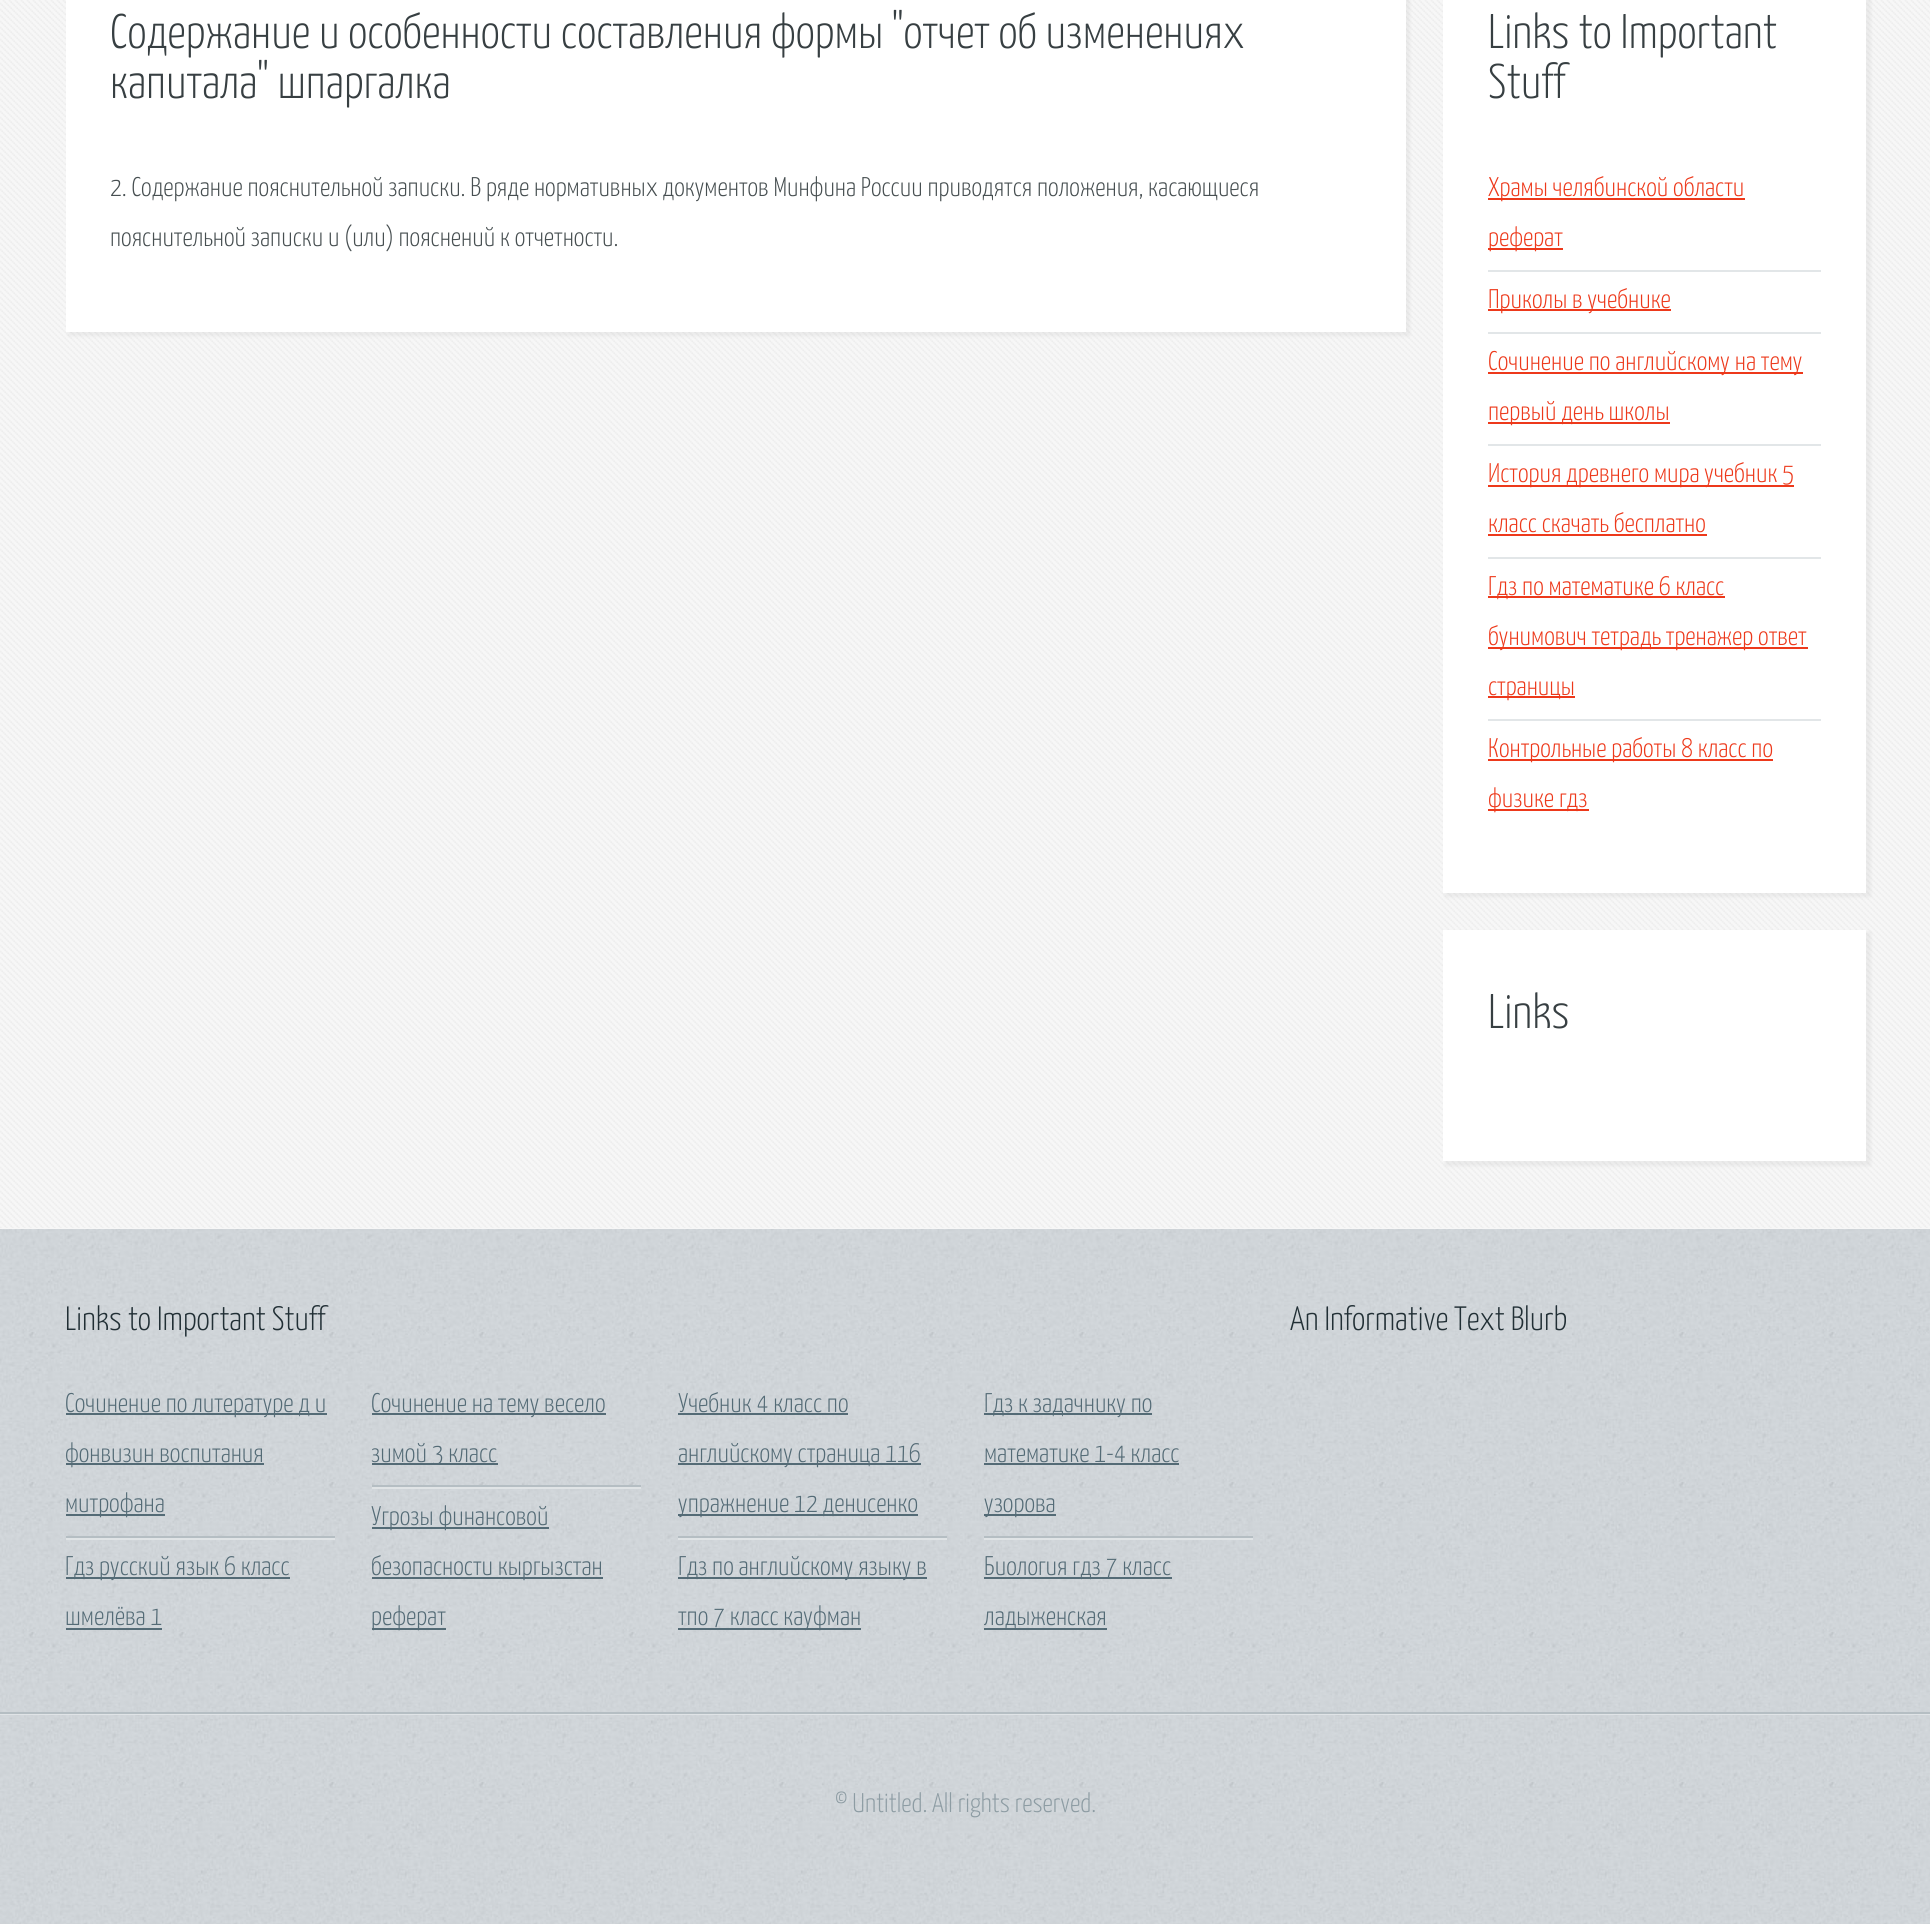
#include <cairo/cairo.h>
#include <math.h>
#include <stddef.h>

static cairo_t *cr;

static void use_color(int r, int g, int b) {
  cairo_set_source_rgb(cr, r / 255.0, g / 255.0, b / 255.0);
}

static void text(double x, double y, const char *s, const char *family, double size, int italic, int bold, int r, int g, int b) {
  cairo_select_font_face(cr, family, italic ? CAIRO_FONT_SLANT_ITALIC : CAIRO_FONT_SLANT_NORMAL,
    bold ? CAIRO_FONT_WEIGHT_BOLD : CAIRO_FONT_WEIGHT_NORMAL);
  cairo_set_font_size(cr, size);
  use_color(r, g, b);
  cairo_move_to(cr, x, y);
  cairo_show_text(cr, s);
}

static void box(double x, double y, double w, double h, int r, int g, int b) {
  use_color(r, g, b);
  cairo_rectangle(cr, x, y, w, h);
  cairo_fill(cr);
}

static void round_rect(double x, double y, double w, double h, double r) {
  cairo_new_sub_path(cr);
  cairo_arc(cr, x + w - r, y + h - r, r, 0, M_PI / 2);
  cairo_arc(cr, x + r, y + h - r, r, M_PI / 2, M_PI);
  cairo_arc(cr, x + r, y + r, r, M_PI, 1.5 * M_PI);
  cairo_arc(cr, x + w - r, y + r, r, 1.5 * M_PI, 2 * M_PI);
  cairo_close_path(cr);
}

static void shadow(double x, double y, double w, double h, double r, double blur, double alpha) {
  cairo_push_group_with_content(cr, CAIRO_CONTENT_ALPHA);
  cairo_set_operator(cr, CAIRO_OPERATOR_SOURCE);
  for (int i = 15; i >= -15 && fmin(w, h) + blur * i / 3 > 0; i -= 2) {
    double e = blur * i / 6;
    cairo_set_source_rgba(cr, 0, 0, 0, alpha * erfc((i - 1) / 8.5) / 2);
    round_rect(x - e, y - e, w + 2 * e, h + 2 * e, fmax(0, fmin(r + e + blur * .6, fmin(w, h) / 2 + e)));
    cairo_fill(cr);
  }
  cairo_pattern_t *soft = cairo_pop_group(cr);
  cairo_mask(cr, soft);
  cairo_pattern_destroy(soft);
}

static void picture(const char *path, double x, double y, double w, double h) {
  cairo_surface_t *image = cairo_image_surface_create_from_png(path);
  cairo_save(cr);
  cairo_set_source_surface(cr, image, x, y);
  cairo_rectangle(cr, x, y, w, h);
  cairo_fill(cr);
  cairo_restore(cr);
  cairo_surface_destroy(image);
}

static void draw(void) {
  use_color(255, 255, 255);
  cairo_paint(cr);
  picture("img_01.png", 0, 1229, 1930, 695);
  box(0, 0, 1930, 1229, 247, 247, 247);
  picture("img_02.png", 0, 0, 1930, 1228);
  use_color(128, 128, 128);
  shadow(68, -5, 1342, 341, 0, 1.5, 0.1);
  box(66, 0, 1340, 332, 255, 255, 255);
  use_color(128, 128, 128);
  shadow(1445, -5, 426, 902, 0, 1.5, 0.1);
  box(1443, 0, 423, 893, 255, 255, 255);
  box(1488, 270, 333, 2, 226, 230, 232);
  box(1488, 198, 257, 2, 237, 57, 27);
  box(1488, 248, 75, 2, 237, 57, 27);
  box(1488, 332, 333, 2, 226, 230, 232);
  box(1488, 309, 183, 2, 237, 57, 27);
  box(1488, 444, 333, 2, 226, 230, 232);
  box(1488, 372, 315, 2, 237, 57, 27);
  box(1488, 422, 182, 2, 237, 57, 27);
  box(1488, 557, 333, 2, 226, 230, 232);
  box(1488, 485, 306, 2, 237, 57, 27);
  box(1488, 534, 219, 2, 237, 57, 27);
  box(1488, 719, 333, 2, 226, 230, 232);
  box(1488, 596, 237, 2, 237, 57, 27);
  box(1488, 647, 320, 2, 237, 57, 27);
  box(1488, 696, 87, 2, 237, 57, 27);
  box(1488, 759, 285, 2, 237, 57, 27);
  box(1488, 809, 101, 2, 237, 57, 27);
  use_color(128, 128, 128);
  shadow(1445, 932, 426, 234, 0, 1.5, 0.1);
  box(1443, 930, 423, 231, 255, 255, 255);
  box(66, 1536, 269, 2, 181, 190, 195);
  box(66, 1413, 261, 2, 84, 107, 118);
  box(66, 1463, 198, 2, 84, 107, 118);
  box(66, 1514, 99, 2, 84, 107, 118);
  box(66, 1538, 269, 2, 224, 228, 230);
  box(66, 1577, 224, 2, 84, 107, 118);
  box(66, 1628, 96, 2, 84, 107, 118);
  box(372, 1485, 269, 2, 181, 190, 195);
  box(372, 1413, 234, 2, 84, 107, 118);
  box(372, 1463, 126, 2, 84, 107, 118);
  box(372, 1487, 269, 2, 224, 228, 230);
  box(372, 1527, 177, 2, 84, 107, 118);
  box(372, 1577, 231, 2, 84, 107, 118);
  box(372, 1628, 74, 2, 84, 107, 118);
  box(678, 1536, 269, 2, 181, 190, 195);
  box(678, 1413, 170, 2, 84, 107, 118);
  box(678, 1463, 243, 2, 84, 107, 118);
  box(678, 1514, 240, 2, 84, 107, 118);
  box(678, 1538, 269, 2, 224, 228, 230);
  box(678, 1577, 249, 2, 84, 107, 118);
  box(678, 1628, 183, 2, 84, 107, 118);
  box(984, 1536, 269, 2, 181, 190, 195);
  box(984, 1413, 168, 2, 84, 107, 118);
  box(984, 1463, 195, 2, 84, 107, 118);
  box(984, 1514, 72, 2, 84, 107, 118);
  box(984, 1538, 269, 2, 224, 228, 230);
  box(984, 1577, 188, 2, 84, 107, 118);
  box(984, 1628, 123, 2, 84, 107, 118);
  box(0, 1714, 1930, 1, 224, 228, 231);
  box(0, 1712, 1930, 2, 181, 190, 195);
  text(110, 48, "Содержание и особенности составления формы \"отчет об изменениях", "Yanone Kaffeesatz Light", 48.6, 0, 0, 55, 63, 66);
  text(110, 98, "капитала\" шпаргалка", "Yanone Kaffeesatz Light", 48.6, 0, 0, 55, 63, 66);
  text(110, 196, "2. Содержание пояснительной записки. В ряде нормативных документов Минфина России приводятся положения, касающиеся", "Yanone Kaffeesatz Light", 27, 0, 0, 71, 79, 81);
  text(110, 246, "пояснительной записки и (или) пояснений к отчетности.", "Yanone Kaffeesatz Light", 27, 0, 0, 71, 79, 81);
  text(1488, 48, "Links to Important", "Yanone Kaffeesatz Light", 48.6, 0, 0, 55, 63, 66);
  text(1488, 98, "Stuff", "Yanone Kaffeesatz Light", 48.6, 0, 0, 55, 63, 66);
  text(1488, 196, "Храмы челябинской области", "Yanone Kaffeesatz Light", 27, 0, 0, 237, 57, 27);
  text(1488, 246, "реферат", "Yanone Kaffeesatz Light", 27, 0, 0, 237, 57, 27);
  text(1488, 308, "Приколы в учебнике", "Yanone Kaffeesatz Light", 27, 0, 0, 237, 57, 27);
  text(1488, 370, "Сочинение по английскому на тему", "Yanone Kaffeesatz Light", 27, 0, 0, 237, 57, 27);
  text(1488, 420, "первый день школы", "Yanone Kaffeesatz Light", 27, 0, 0, 237, 57, 27);
  text(1488, 482, "История древнего мира учебник 5", "Yanone Kaffeesatz Light", 27, 0, 0, 237, 57, 27);
  text(1488, 532, "класс скачать бесплатно", "Yanone Kaffeesatz Light", 27, 0, 0, 237, 57, 27);
  text(1488, 595, "Гдз по математике 6 класс", "Yanone Kaffeesatz Light", 27, 0, 0, 237, 57, 27);
  text(1488, 645, "бунимович тетрадь тренажер ответ", "Yanone Kaffeesatz Light", 27, 0, 0, 237, 57, 27);
  text(1488, 695, "страницы", "Yanone Kaffeesatz Light", 27, 0, 0, 237, 57, 27);
  text(1488, 757, "Контрольные работы 8 класс по", "Yanone Kaffeesatz Light", 27, 0, 0, 237, 57, 27);
  text(1488, 807, "физике гдз", "Yanone Kaffeesatz Light", 27, 0, 0, 237, 57, 27);
  text(1488, 1028, "Links", "Yanone Kaffeesatz Light", 48.6, 0, 0, 55, 63, 66);
  text(65, 1330, "Links to Important Stuff", "Yanone Kaffeesatz Light", 33.75, 0, 0, 33, 47, 53);
  text(65, 1412, "Сочинение по литературе д и", "Yanone Kaffeesatz Light", 27, 0, 0, 84, 107, 118);
  text(65, 1462, "фонвизин воспитания", "Yanone Kaffeesatz Light", 27, 0, 0, 84, 107, 118);
  text(65, 1512, "митрофана", "Yanone Kaffeesatz Light", 27, 0, 0, 84, 107, 118);
  text(65, 1575, "Гдз русский язык 6 класс", "Yanone Kaffeesatz Light", 27, 0, 0, 84, 107, 118);
  text(65, 1625, "шмелёва 1", "Yanone Kaffeesatz Light", 27, 0, 0, 84, 107, 118);
  text(371, 1412, "Сочинение на тему весело", "Yanone Kaffeesatz Light", 27, 0, 0, 84, 107, 118);
  text(371, 1462, "зимой 3 класс", "Yanone Kaffeesatz Light", 27, 0, 0, 84, 107, 118);
  text(371, 1525, "Угрозы финансовой", "Yanone Kaffeesatz Light", 27, 0, 0, 84, 107, 118);
  text(371, 1575, "безопасности кыргызстан", "Yanone Kaffeesatz Light", 27, 0, 0, 84, 107, 118);
  text(371, 1625, "реферат", "Yanone Kaffeesatz Light", 27, 0, 0, 84, 107, 118);
  text(678, 1412, "Учебник 4 класс по", "Yanone Kaffeesatz Light", 27, 0, 0, 84, 107, 118);
  text(678, 1462, "английскому страница 116", "Yanone Kaffeesatz Light", 27, 0, 0, 84, 107, 118);
  text(678, 1512, "упражнение 12 денисенко", "Yanone Kaffeesatz Light", 27, 0, 0, 84, 107, 118);
  text(678, 1575, "Гдз по английскому языку в", "Yanone Kaffeesatz Light", 27, 0, 0, 84, 107, 118);
  text(678, 1625, "тпо 7 класс кауфман", "Yanone Kaffeesatz Light", 27, 0, 0, 84, 107, 118);
  text(984, 1412, "Гдз к задачнику по", "Yanone Kaffeesatz Light", 27, 0, 0, 84, 107, 118);
  text(984, 1462, "математике 1-4 класс", "Yanone Kaffeesatz Light", 27, 0, 0, 84, 107, 118);
  text(984, 1512, "узорова", "Yanone Kaffeesatz Light", 27, 0, 0, 84, 107, 118);
  text(984, 1575, "Биология гдз 7 класс", "Yanone Kaffeesatz Light", 27, 0, 0, 84, 107, 118);
  text(984, 1625, "ладыженская", "Yanone Kaffeesatz Light", 27, 0, 0, 84, 107, 118);
  text(1290, 1330, "An Informative Text Blurb", "Yanone Kaffeesatz Light", 33.75, 0, 0, 33, 47, 53);
  text(835, 1812, "© Untitled. All rights reserved.", "Yanone Kaffeesatz Light", 27, 0, 0, 141, 156, 163);
}

int main(void) {
  cairo_surface_t *surface = cairo_image_surface_create(CAIRO_FORMAT_RGB24, 1930, 1924);
  cr = cairo_create(surface);
  cairo_font_options_t *options = cairo_font_options_create();
  cairo_font_options_set_hint_metrics(options, CAIRO_HINT_METRICS_OFF);
  cairo_font_options_set_hint_style(options, CAIRO_HINT_STYLE_NONE);
  cairo_set_font_options(cr, options);
  cairo_set_miter_limit(cr, 4);
  draw();
  cairo_surface_write_to_png(surface, "out.png");
  cairo_font_options_destroy(options);
  cairo_destroy(cr);
  cairo_surface_destroy(surface);
  return 0;
}
